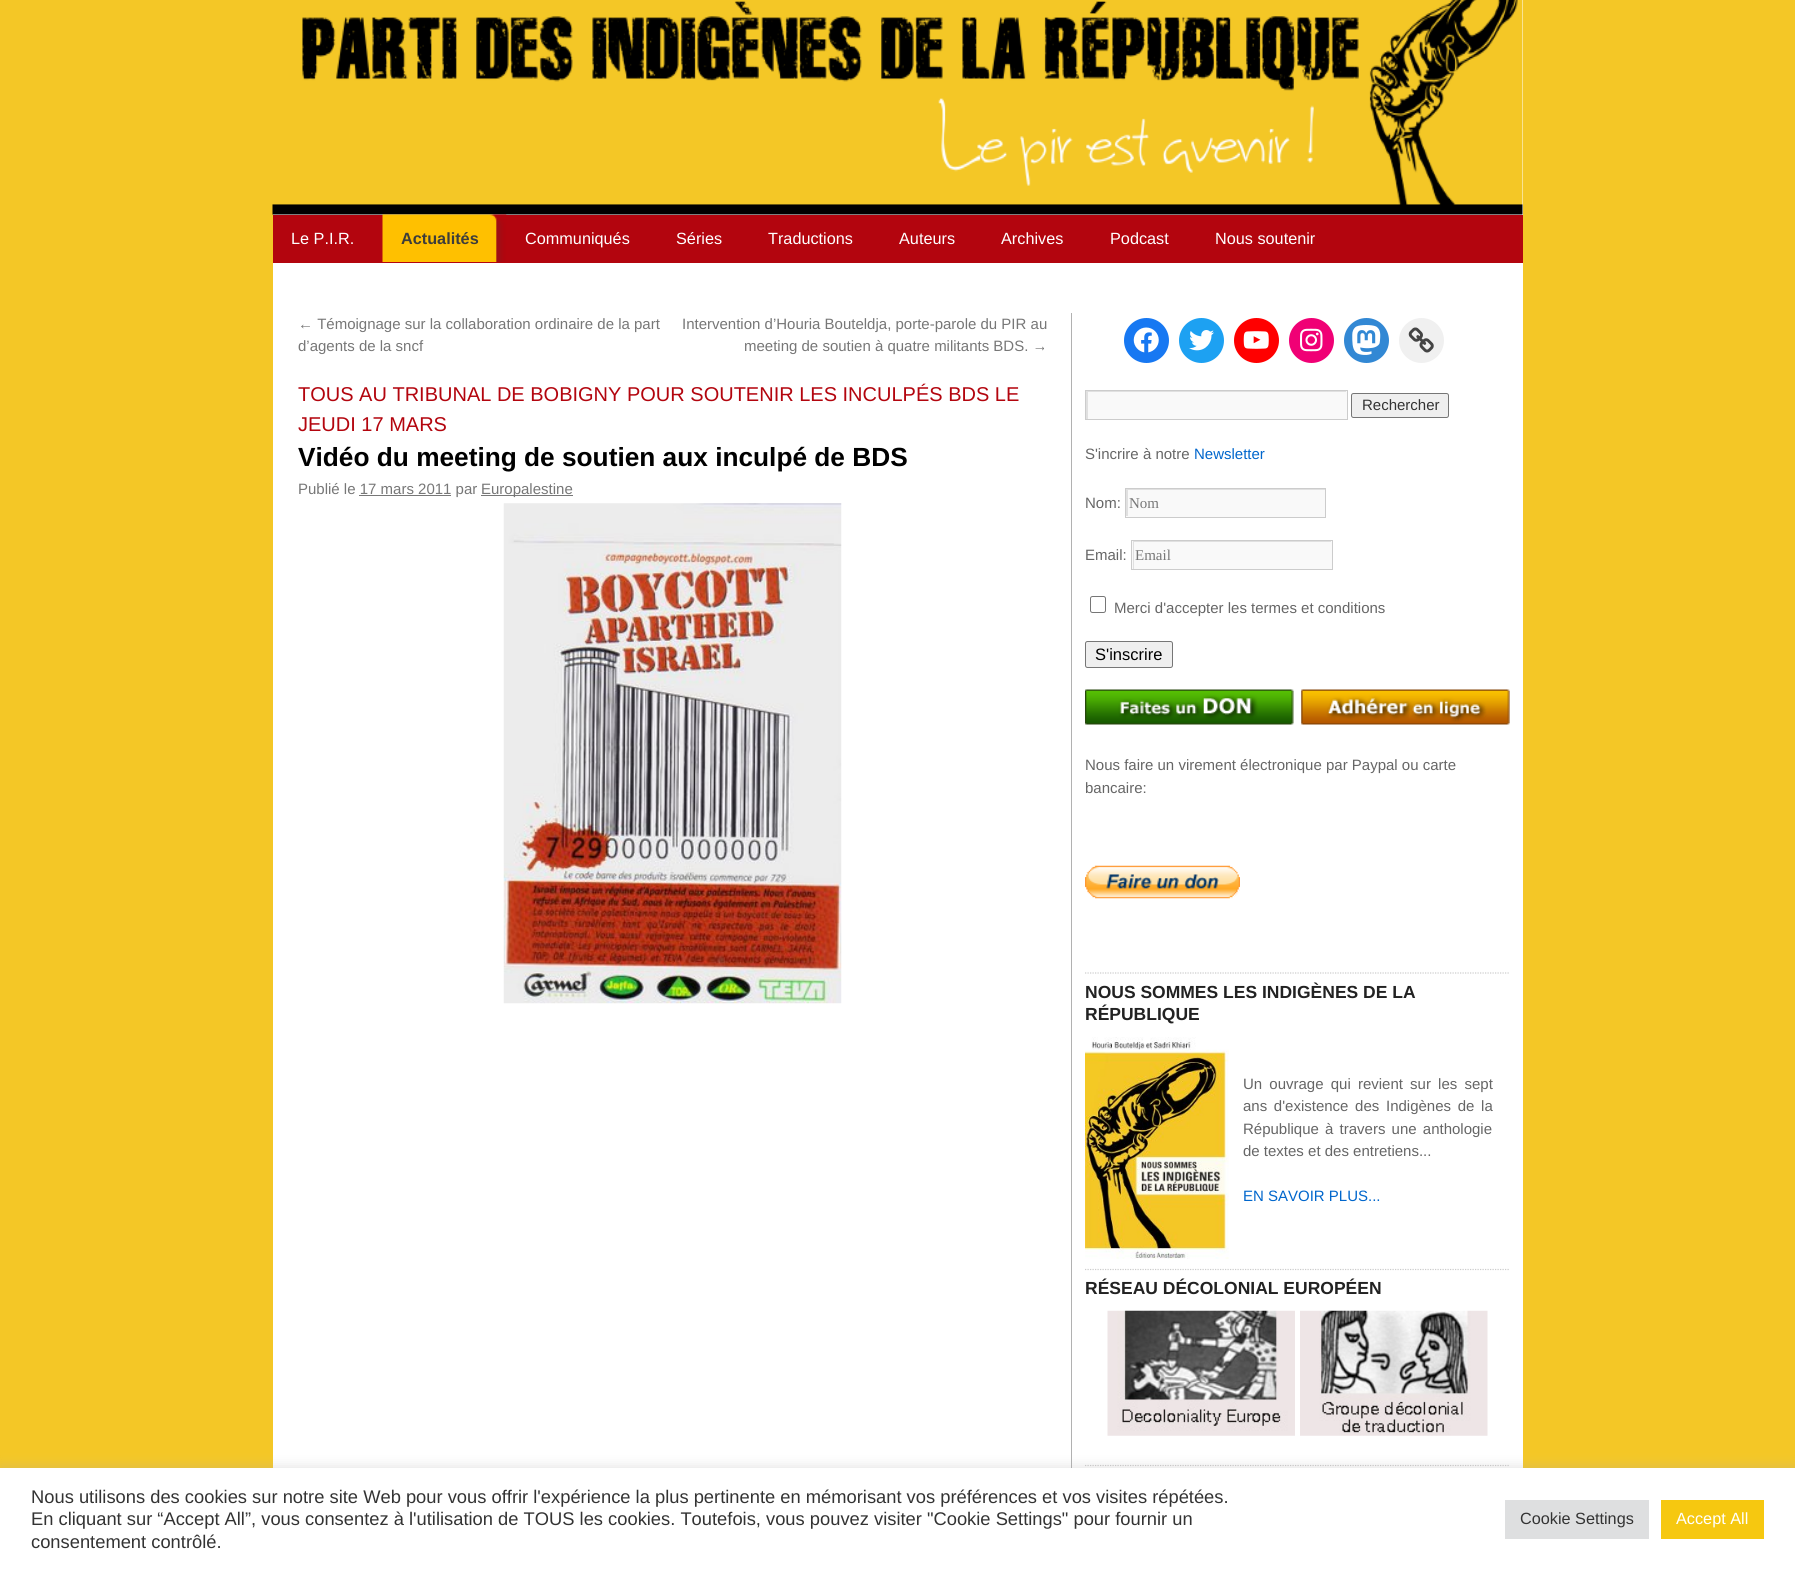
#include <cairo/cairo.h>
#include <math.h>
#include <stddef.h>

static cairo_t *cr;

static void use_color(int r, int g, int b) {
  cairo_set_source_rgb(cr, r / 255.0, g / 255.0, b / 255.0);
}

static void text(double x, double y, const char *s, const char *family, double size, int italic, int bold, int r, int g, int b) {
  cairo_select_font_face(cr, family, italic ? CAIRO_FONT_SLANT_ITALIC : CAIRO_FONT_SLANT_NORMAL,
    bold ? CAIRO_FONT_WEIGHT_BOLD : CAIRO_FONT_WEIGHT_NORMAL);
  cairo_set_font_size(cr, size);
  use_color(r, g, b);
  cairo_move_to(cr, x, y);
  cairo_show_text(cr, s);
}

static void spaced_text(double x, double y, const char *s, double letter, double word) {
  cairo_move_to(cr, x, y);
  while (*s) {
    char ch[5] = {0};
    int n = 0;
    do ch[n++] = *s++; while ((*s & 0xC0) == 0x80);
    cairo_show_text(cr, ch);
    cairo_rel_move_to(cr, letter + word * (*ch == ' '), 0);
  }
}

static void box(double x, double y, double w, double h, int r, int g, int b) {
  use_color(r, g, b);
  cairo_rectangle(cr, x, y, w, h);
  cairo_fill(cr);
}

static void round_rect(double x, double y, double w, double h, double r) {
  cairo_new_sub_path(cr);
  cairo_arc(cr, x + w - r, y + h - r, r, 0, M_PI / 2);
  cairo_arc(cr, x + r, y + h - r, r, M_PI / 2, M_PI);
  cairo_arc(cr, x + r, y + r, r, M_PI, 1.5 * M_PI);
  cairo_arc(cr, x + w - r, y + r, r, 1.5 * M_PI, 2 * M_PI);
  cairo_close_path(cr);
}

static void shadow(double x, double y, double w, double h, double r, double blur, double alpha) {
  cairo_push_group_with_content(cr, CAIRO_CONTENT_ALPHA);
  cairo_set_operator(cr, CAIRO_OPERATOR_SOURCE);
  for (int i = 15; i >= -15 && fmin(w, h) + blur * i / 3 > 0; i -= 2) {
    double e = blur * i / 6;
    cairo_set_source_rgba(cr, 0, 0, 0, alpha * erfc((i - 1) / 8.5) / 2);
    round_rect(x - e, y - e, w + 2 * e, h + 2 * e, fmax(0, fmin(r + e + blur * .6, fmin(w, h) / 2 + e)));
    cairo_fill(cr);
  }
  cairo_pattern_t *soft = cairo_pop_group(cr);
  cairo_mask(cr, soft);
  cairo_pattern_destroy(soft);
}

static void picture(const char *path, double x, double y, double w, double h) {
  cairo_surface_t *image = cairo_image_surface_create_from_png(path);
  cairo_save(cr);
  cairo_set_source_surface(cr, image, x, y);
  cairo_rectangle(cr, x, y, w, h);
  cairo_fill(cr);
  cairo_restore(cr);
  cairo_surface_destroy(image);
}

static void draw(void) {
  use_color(244, 199, 38);
  cairo_paint(cr);
  box(273, 0, 1250, 1468, 255, 255, 255);
  picture("img_01.png", 272, 0, 1251, 215);
  box(273, 215, 1250, 48, 179, 5, 14);
  picture("img_02.png", 382, 214, 125, 48);
  box(481, 495, 92, 1, 119, 119, 119);
  box(359, 495, 92, 1, 119, 119, 119);
  picture("img_03.png", 503, 503, 339, 501);
  box(1071, 313, 1, 1155, 177, 177, 177);
  use_color(23, 120, 242);
  cairo_arc(cr, 1146.5, 340.5, 22.5, 0, 2 * M_PI);
  cairo_fill(cr);
  picture("img_04.png", 1133, 327, 26, 26);
  use_color(29, 161, 242);
  cairo_arc(cr, 1201.5, 340.5, 22.5, 0, 2 * M_PI);
  cairo_fill(cr);
  picture("img_05.png", 1189, 330, 25, 21);
  use_color(255, 0, 0);
  cairo_arc(cr, 1256.5, 340.5, 22.5, 0, 2 * M_PI);
  cairo_fill(cr);
  picture("img_06.png", 1243, 331, 26, 18);
  use_color(240, 0, 117);
  cairo_arc(cr, 1311.5, 340.5, 22.5, 0, 2 * M_PI);
  cairo_fill(cr);
  picture("img_07.png", 1300, 328, 23, 24);
  use_color(50, 136, 212);
  cairo_arc(cr, 1366.5, 340.5, 22.5, 0, 2 * M_PI);
  cairo_fill(cr);
  picture("img_08.png", 1352, 325, 29, 30);
  use_color(240, 240, 240);
  cairo_arc(cr, 1421.5, 340.5, 22.5, 0, 2 * M_PI);
  cairo_fill(cr);
  picture("img_09.png", 1408, 327, 26, 26);
  box(1088, 391, 259, 28, 249, 249, 249);
  cairo_save(cr);
  cairo_rectangle(cr, 1086, 391, 260, 28);
  cairo_clip(cr);
  use_color(224, 224, 224);
  cairo_set_fill_rule(cr, CAIRO_FILL_RULE_EVEN_ODD);
  cairo_new_path(cr);
  cairo_move_to(cr, 962, 268);
  cairo_line_to(cr, 1470, 268);
  cairo_line_to(cr, 1470, 542);
  cairo_line_to(cr, 962, 542);
  cairo_close_path(cr);
  cairo_move_to(cr, 1088, 392);
  cairo_line_to(cr, 1348, 392);
  cairo_line_to(cr, 1348, 420);
  cairo_line_to(cr, 1088, 420);
  cairo_close_path(cr);
  cairo_fill(cr);
  cairo_restore(cr);
  cairo_rectangle(cr, 1085.5, 390.5, 262, 29);
  use_color(204, 204, 204);
  cairo_set_line_width(cr, 1);
  cairo_stroke(cr);
  use_color(239, 239, 239);
  round_rect(1351.5, 393.5, 97, 24, 2);
  cairo_fill_preserve(cr);
  use_color(118, 118, 118);
  cairo_stroke(cr);
  box(1126, 490, 199, 27, 249, 249, 249);
  cairo_save(cr);
  cairo_rectangle(cr, 1126, 489, 199, 27);
  cairo_clip(cr);
  use_color(224, 224, 224);
  cairo_set_fill_rule(cr, CAIRO_FILL_RULE_EVEN_ODD);
  cairo_new_path(cr);
  cairo_move_to(cr, 1002, 365);
  cairo_line_to(cr, 1449, 365);
  cairo_line_to(cr, 1449, 640);
  cairo_line_to(cr, 1002, 640);
  cairo_close_path(cr);
  cairo_move_to(cr, 1128, 490);
  cairo_line_to(cr, 1326, 490);
  cairo_line_to(cr, 1326, 518);
  cairo_line_to(cr, 1128, 518);
  cairo_close_path(cr);
  cairo_fill(cr);
  cairo_restore(cr);
  cairo_rectangle(cr, 1125.5, 488.5, 200, 29);
  use_color(204, 204, 204);
  cairo_stroke(cr);
  box(1132, 541, 200, 28, 249, 249, 249);
  cairo_save(cr);
  cairo_rectangle(cr, 1133, 541, 198, 28);
  cairo_clip(cr);
  use_color(224, 224, 224);
  cairo_set_fill_rule(cr, CAIRO_FILL_RULE_EVEN_ODD);
  cairo_new_path(cr);
  cairo_move_to(cr, 1009, 418);
  cairo_line_to(cr, 1455, 418);
  cairo_line_to(cr, 1455, 692);
  cairo_line_to(cr, 1009, 692);
  cairo_close_path(cr);
  cairo_move_to(cr, 1134, 542);
  cairo_line_to(cr, 1332, 542);
  cairo_line_to(cr, 1332, 570);
  cairo_line_to(cr, 1134, 570);
  cairo_close_path(cr);
  cairo_fill(cr);
  cairo_restore(cr);
  cairo_rectangle(cr, 1131.5, 540.5, 201, 29);
  use_color(204, 204, 204);
  cairo_stroke(cr);
  round_rect(1090.5, 596.5, 15, 16, 2);
  use_color(118, 118, 118);
  cairo_stroke(cr);
  use_color(239, 239, 239);
  round_rect(1085.5, 641.5, 87, 26, 2);
  cairo_fill_preserve(cr);
  use_color(118, 118, 118);
  cairo_stroke(cr);
  picture("img_10.png", 1085, 689, 209, 36);
  picture("img_11.png", 1301, 689, 209, 36);
  picture("img_12.png", 1085, 865, 155, 34);
  cairo_new_path(cr);
  cairo_move_to(cr, 1085, 973);
  cairo_line_to(cr, 1510, 973);
  use_color(204, 204, 204);
  cairo_set_line_width(cr, 1.2);
  cairo_set_dash(cr, (double[]){1.25, 1.25}, 2, 0);
  cairo_stroke(cr);
  picture("img_13.png", 1085, 1037, 144, 222);
  cairo_new_path(cr);
  cairo_move_to(cr, 1085, 1269.5);
  cairo_line_to(cr, 1510, 1269.5);
  cairo_stroke(cr);
  picture("img_14.png", 1107, 1310, 188, 126);
  picture("img_15.png", 1300, 1310, 188, 126);
  cairo_new_path(cr);
  cairo_move_to(cr, 1085, 1465.5);
  cairo_line_to(cr, 1510, 1465.5);
  cairo_stroke(cr);
  use_color(172, 171, 171);
  shadow(0, 1466, 1795, 103, 0, 6, 0.3);
  box(0, 1468, 1795, 102, 255, 255, 255);
  box(1505, 1500, 144, 39, 222, 223, 224);
  box(1661, 1500, 103, 39, 246, 200, 16);
  text(291, 244, "Le P.I.R.", "Liberation Sans", 16.25, 0, 0, 255, 255, 255);
  text(401, 244, "Actualités", "Liberation Sans", 16.25, 0, 1, 61, 61, 59);
  text(525, 244, "Communiqués", "Liberation Sans", 16.25, 0, 0, 255, 255, 255);
  text(676, 244, "Séries", "Liberation Sans", 16.25, 0, 0, 255, 255, 255);
  text(768, 244, "Traductions", "Liberation Sans", 16.25, 0, 0, 255, 255, 255);
  text(899, 244, "Auteurs", "Liberation Sans", 16.25, 0, 0, 255, 255, 255);
  text(1001, 244, "Archives", "Liberation Sans", 16.25, 0, 0, 255, 255, 255);
  text(1110, 244, "Podcast", "Liberation Sans", 16.25, 0, 0, 255, 255, 255);
  text(1215, 244, "Nous soutenir", "Liberation Sans", 16.25, 0, 0, 255, 255, 255);
  text(298, 329, "← Témoignage sur la collaboration ordinaire de la part", "Liberation Sans", 15, 0, 0, 119, 119, 119);
  text(298, 351, "d’agents de la sncf", "Liberation Sans", 15, 0, 0, 119, 119, 119);
  text(682, 329, "Intervention d’Houria Bouteldja, porte-parole du PIR au", "Liberation Sans", 15, 0, 0, 119, 119, 119);
  text(744, 351, "meeting de soutien à quatre militants BDS. →", "Liberation Sans", 15, 0, 0, 119, 119, 119);
  text(298, 401, "TOUS AU TRIBUNAL DE BOBIGNY POUR SOUTENIR LES INCULPÉS BDS LE", "Liberation Sans", 20, 0, 0, 179, 5, 14);
  text(298, 431, "JEUDI 17 MARS", "Liberation Sans", 20, 0, 0, 179, 5, 14);
  text(298, 466, "Vidéo du meeting de soutien aux inculpé de BDS", "Liberation Sans", 26.25, 0, 1, 0, 0, 0);
  text(298, 494, "Publié le 17 mars 2011 par", "Liberation Sans", 15, 0, 0, 119, 119, 119);
  text(481, 494, "Europalestine", "Liberation Sans", 15, 0, 0, 119, 119, 119);
  text(1362, 410, "Rechercher", "Liberation Sans", 15, 0, 0, 51, 51, 51);
  text(1085, 459, "S'incrire à notre", "Liberation Sans", 15, 0, 0, 102, 102, 102);
  text(1194, 459, "Newsletter", "Liberation Sans", 15, 0, 0, 0, 102, 204);
  text(1085, 508, "Nom:", "Liberation Sans", 15, 0, 0, 102, 102, 102);
  text(1129, 508, "Nom", "Liberation Serif", 15, 0, 0, 119, 119, 119);
  text(1085, 560, "Email:", "Liberation Sans", 15, 0, 0, 102, 102, 102);
  text(1135, 560, "Email", "Liberation Serif", 15, 0, 0, 119, 119, 119);
  text(1114, 613, "Merci d'accepter les termes et conditions", "Liberation Sans", 15, 0, 0, 102, 102, 102);
  text(1095, 660, "S'inscrire", "Liberation Sans", 16.5, 0, 0, 0, 0, 0);
  text(1085, 770, "Nous faire un virement électronique par Paypal ou carte", "Liberation Sans", 15, 0, 0, 102, 102, 102);
  text(1085, 793, "bancaire:", "Liberation Sans", 15, 0, 0, 102, 102, 102);
  text(1085, 998, "NOUS SOMMES LES INDIGÈNES DE LA", "Liberation Sans", 17.5, 0, 1, 34, 34, 34);
  text(1085, 1020, "RÉPUBLIQUE", "Liberation Sans", 17.5, 0, 1, 34, 34, 34);
  cairo_select_font_face(cr, "Liberation Sans", CAIRO_FONT_SLANT_NORMAL, CAIRO_FONT_WEIGHT_NORMAL);
  cairo_set_font_size(cr, 15);
  use_color(102, 102, 102);
  spaced_text(1243, 1089, "Un ouvrage qui revient sur les sept", 0, 3);
  spaced_text(1243, 1111, "ans d'existence des Indigènes de la", 0, 2.5);
  spaced_text(1243, 1134, "République à travers une anthologie", 0, 2);
  text(1243, 1156, "de textes et des entretiens...", "Liberation Sans", 15, 0, 0, 102, 102, 102);
  text(1243, 1201, "EN SAVOIR PLUS...", "Liberation Sans", 15, 0, 0, 0, 102, 204);
  text(1085, 1294, "RÉSEAU DÉCOLONIAL EUROPÉEN", "Liberation Sans", 17.5, 0, 1, 34, 34, 34);
  text(31, 1503, "Nous utilisons des cookies sur notre site Web pour vous offrir l'expérience la plus pertinente en mémorisant vos préférences et vos visites répétées.", "Liberation Sans", 18.33, 0, 0, 51, 51, 51);
  text(31, 1525, "En cliquant sur “Accept All”, vous consentez à l'utilisation de TOUS les cookies. Toutefois, vous pouvez visiter \"Cookie Settings\" pour fournir un", "Liberation Sans", 18.33, 0, 0, 51, 51, 51);
  text(31, 1548, "consentement contrôlé.", "Liberation Sans", 18.33, 0, 0, 51, 51, 51);
  text(1520, 1524, "Cookie Settings", "Liberation Sans", 16.25, 0, 0, 51, 51, 51);
  text(1676, 1524, "Accept All", "Liberation Sans", 16.25, 0, 0, 255, 255, 255);
}

int main(void) {
  cairo_surface_t *surface = cairo_image_surface_create(CAIRO_FORMAT_RGB24, 1795, 1570);
  cr = cairo_create(surface);
  cairo_font_options_t *options = cairo_font_options_create();
  cairo_font_options_set_hint_metrics(options, CAIRO_HINT_METRICS_OFF);
  cairo_font_options_set_hint_style(options, CAIRO_HINT_STYLE_NONE);
  cairo_set_font_options(cr, options);
  cairo_set_miter_limit(cr, 4);
  draw();
  cairo_surface_write_to_png(surface, "out.png");
  cairo_font_options_destroy(options);
  cairo_destroy(cr);
  cairo_surface_destroy(surface);
  return 0;
}
